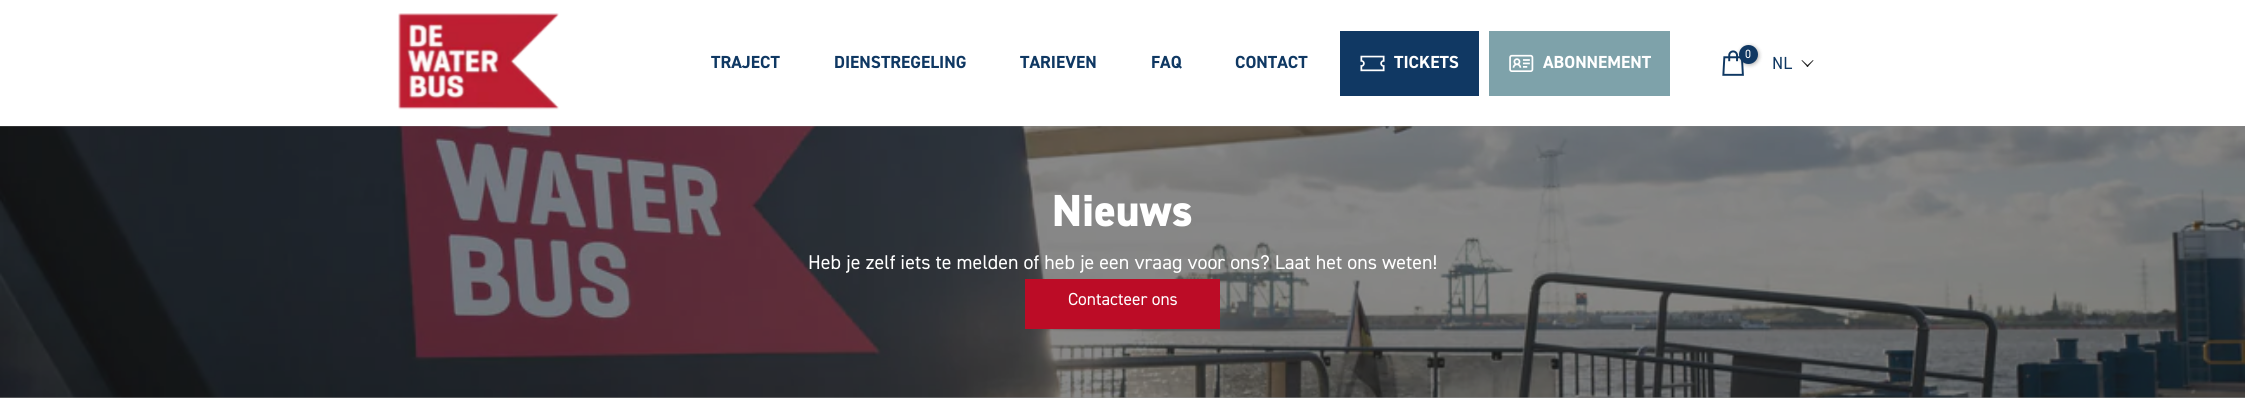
#include <cairo/cairo.h>
#include <math.h>
#include <stddef.h>

static cairo_t *cr;

static void use_color(int r, int g, int b) {
  cairo_set_source_rgb(cr, r / 255.0, g / 255.0, b / 255.0);
}

static void text(double x, double y, const char *s, const char *family, double size, int italic, int bold, int r, int g, int b) {
  cairo_select_font_face(cr, family, italic ? CAIRO_FONT_SLANT_ITALIC : CAIRO_FONT_SLANT_NORMAL,
    bold ? CAIRO_FONT_WEIGHT_BOLD : CAIRO_FONT_WEIGHT_NORMAL);
  cairo_set_font_size(cr, size);
  use_color(r, g, b);
  cairo_move_to(cr, x, y);
  cairo_show_text(cr, s);
}

static void box(double x, double y, double w, double h, int r, int g, int b) {
  use_color(r, g, b);
  cairo_rectangle(cr, x, y, w, h);
  cairo_fill(cr);
}

static void round_rect(double x, double y, double w, double h, double r) {
  cairo_new_sub_path(cr);
  cairo_arc(cr, x + w - r, y + h - r, r, 0, M_PI / 2);
  cairo_arc(cr, x + r, y + h - r, r, M_PI / 2, M_PI);
  cairo_arc(cr, x + r, y + r, r, M_PI, 1.5 * M_PI);
  cairo_arc(cr, x + w - r, y + r, r, 1.5 * M_PI, 2 * M_PI);
  cairo_close_path(cr);
}

static void shadow(double x, double y, double w, double h, double r, double blur, double alpha) {
  cairo_push_group_with_content(cr, CAIRO_CONTENT_ALPHA);
  cairo_set_operator(cr, CAIRO_OPERATOR_SOURCE);
  for (int i = 15; i >= -15 && fmin(w, h) + blur * i / 3 > 0; i -= 2) {
    double e = blur * i / 6;
    cairo_set_source_rgba(cr, 0, 0, 0, alpha * erfc((i - 1) / 8.5) / 2);
    round_rect(x - e, y - e, w + 2 * e, h + 2 * e, fmax(0, fmin(r + e + blur * .6, fmin(w, h) / 2 + e)));
    cairo_fill(cr);
  }
  cairo_pattern_t *soft = cairo_pop_group(cr);
  cairo_mask(cr, soft);
  cairo_pattern_destroy(soft);
}

static void picture(const char *path, double x, double y, double w, double h) {
  cairo_surface_t *image = cairo_image_surface_create_from_png(path);
  cairo_save(cr);
  cairo_set_source_surface(cr, image, x, y);
  cairo_rectangle(cr, x, y, w, h);
  cairo_fill(cr);
  cairo_restore(cr);
  cairo_surface_destroy(image);
}

static void draw(void) {
  use_color(255, 255, 255);
  cairo_paint(cr);
  box(0, 126, 2245, 272, 136, 136, 136);
  picture("img_01.png", 398, 13, 161, 97);
  box(1340, 31, 139, 65, 16, 56, 99);
  picture("img_02.png", 1360, 55, 25, 17);
  box(1489, 31, 181, 65, 126, 162, 170);
  picture("img_03.png", 1509, 54, 25, 18);
  picture("img_04.png", 1722, 50, 22, 26);
  use_color(0, 0, 0);
  shadow(1740, 46, 19, 19, 9.5, 2, 0.3);
  use_color(16, 56, 99);
  cairo_arc(cr, 1748.5, 54.5, 9.5, 0, 2 * M_PI);
  cairo_fill(cr);
  use_color(26, 26, 26);
  cairo_new_path(cr);
  cairo_move_to(cr, 1813, 60);
  cairo_line_to(cr, 1813.5, 60.5);
  cairo_line_to(cr, 1807.5, 67);
  cairo_line_to(cr, 1806.5, 66);
  cairo_close_path(cr);
  cairo_fill(cr);
  cairo_new_path(cr);
  cairo_move_to(cr, 1802, 60);
  cairo_line_to(cr, 1808.5, 66);
  cairo_line_to(cr, 1807.5, 67);
  cairo_line_to(cr, 1801.5, 60.5);
  cairo_close_path(cr);
  cairo_fill(cr);
  picture("img_05.png", 0, 126, 2245, 272);
  box(1025, 279, 195, 50, 188, 12, 38);
  text(711, 68, "TRAJECT", "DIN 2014", 17.5, 0, 1, 15, 56, 99);
  text(834, 68, "DIENSTREGELING", "DIN 2014", 17.5, 0, 1, 15, 56, 99);
  text(1020, 68, "TARIEVEN", "DIN 2014", 17.5, 0, 1, 15, 56, 99);
  text(1151, 68, "FAQ", "DIN 2014", 17.5, 0, 1, 15, 56, 99);
  text(1235, 68, "CONTACT", "DIN 2014", 17.5, 0, 1, 15, 56, 99);
  text(1394, 68, "TICKETS", "DIN 2014", 17.5, 0, 1, 255, 255, 255);
  text(1543, 68, "ABONNEMENT", "DIN 2014", 17.5, 0, 1, 255, 255, 255);
  text(1745, 58, "0", "DIN 2014", 12, 0, 0, 255, 255, 255);
  text(1772, 69, "NL", "DIN 2014", 17.5, 0, 0, 15, 56, 99);
  text(1052, 226, "Nieuws", "DIN 2014 ExtraBold", 45, 0, 0, 255, 255, 255);
  text(808, 269, "Heb je zelf iets te melden of heb je een vraag voor ons? Laat het ons weten!", "DIN 2014", 20, 0, 0, 255, 255, 255);
  text(1068, 305, "Contacteer ons", "DIN 2014", 17.5, 0, 0, 255, 255, 255);
}

int main(void) {
  cairo_surface_t *surface = cairo_image_surface_create(CAIRO_FORMAT_RGB24, 2245, 417);
  cr = cairo_create(surface);
  cairo_font_options_t *options = cairo_font_options_create();
  cairo_font_options_set_hint_metrics(options, CAIRO_HINT_METRICS_OFF);
  cairo_font_options_set_hint_style(options, CAIRO_HINT_STYLE_NONE);
  cairo_set_font_options(cr, options);
  cairo_set_miter_limit(cr, 4);
  draw();
  cairo_surface_write_to_png(surface, "out.png");
  cairo_font_options_destroy(options);
  cairo_destroy(cr);
  cairo_surface_destroy(surface);
  return 0;
}
